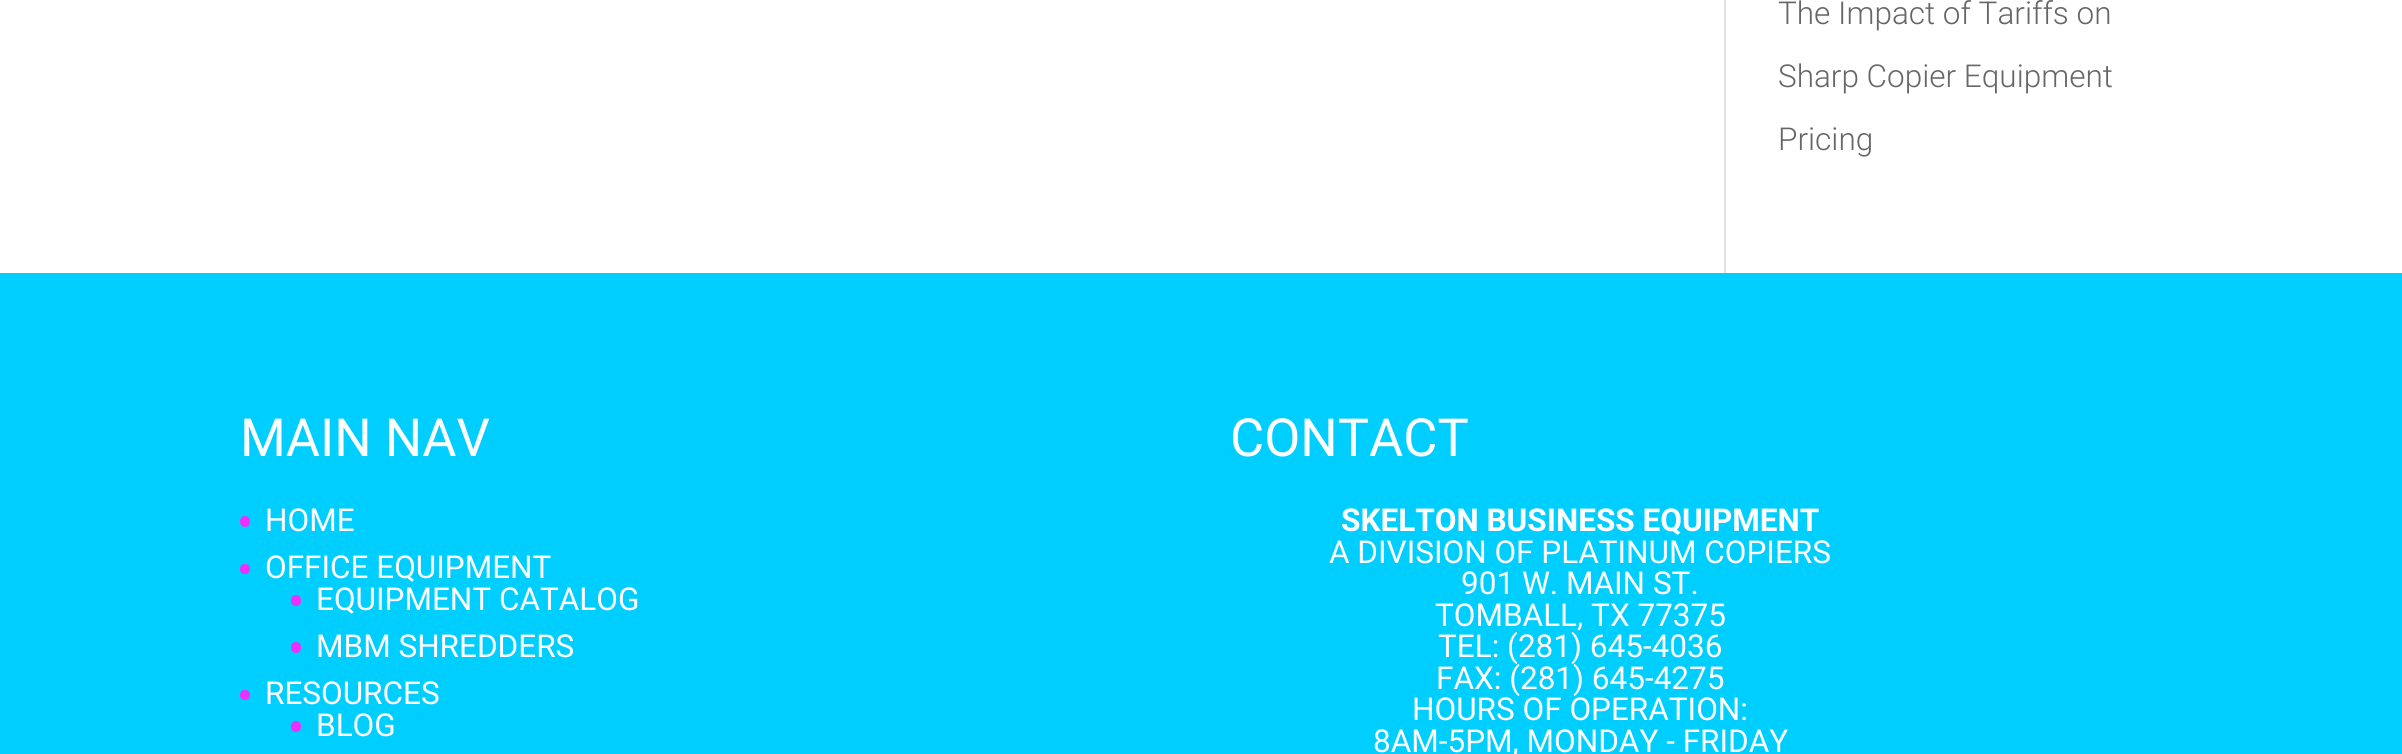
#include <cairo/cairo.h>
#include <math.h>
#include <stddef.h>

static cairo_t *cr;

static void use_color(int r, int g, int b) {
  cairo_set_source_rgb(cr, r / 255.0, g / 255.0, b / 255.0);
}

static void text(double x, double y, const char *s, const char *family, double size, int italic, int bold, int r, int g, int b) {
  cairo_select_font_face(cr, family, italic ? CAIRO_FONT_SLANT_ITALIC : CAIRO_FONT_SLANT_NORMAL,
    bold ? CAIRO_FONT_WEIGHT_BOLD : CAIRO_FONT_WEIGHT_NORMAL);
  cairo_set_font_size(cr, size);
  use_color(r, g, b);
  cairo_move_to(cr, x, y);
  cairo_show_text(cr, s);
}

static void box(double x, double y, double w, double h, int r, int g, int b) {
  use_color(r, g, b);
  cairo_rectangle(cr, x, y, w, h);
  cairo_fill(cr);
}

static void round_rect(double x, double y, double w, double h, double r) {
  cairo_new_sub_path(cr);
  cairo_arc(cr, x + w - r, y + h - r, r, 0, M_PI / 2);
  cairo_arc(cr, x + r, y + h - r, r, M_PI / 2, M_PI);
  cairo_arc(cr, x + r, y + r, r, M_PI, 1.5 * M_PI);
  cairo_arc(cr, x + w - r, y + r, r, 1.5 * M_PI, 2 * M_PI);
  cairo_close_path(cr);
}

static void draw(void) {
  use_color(255, 255, 255);
  cairo_paint(cr);
  box(1724, 0, 2, 273, 226, 226, 226);
  box(0, 273, 2402, 481, 0, 206, 255);
  use_color(238, 47, 252);
  round_rect(240, 516, 10, 11, 5);
  cairo_fill(cr);
  cairo_arc(cr, 245, 569, 5, 0, 2 * M_PI);
  cairo_fill(cr);
  round_rect(291, 595, 10, 11, 5);
  cairo_fill(cr);
  round_rect(291, 642, 10, 11, 5);
  cairo_fill(cr);
  cairo_arc(cr, 245, 695, 5, 0, 2 * M_PI);
  cairo_fill(cr);
  round_rect(291, 721, 10, 11, 5);
  cairo_fill(cr);
  text(1778, 24, "The Impact of Tariffs on", "Roboto Light", 31.5, 0, 0, 102, 102, 102);
  text(1778, 87, "Sharp Copier Equipment", "Roboto Light", 31.5, 0, 0, 102, 102, 102);
  text(1778, 150, "Pricing", "Roboto Light", 31.5, 0, 0, 102, 102, 102);
  text(240, 456, "MAIN NAV", "Roboto", 52.5, 0, 0, 255, 255, 255);
  text(265, 531, "HOME", "Roboto", 31.5, 0, 0, 255, 255, 255);
  text(265, 578, "OFFICE EQUIPMENT", "Roboto", 31.5, 0, 0, 255, 255, 255);
  text(316, 610, "EQUIPMENT CATALOG", "Roboto", 31.5, 0, 0, 255, 255, 255);
  text(316, 657, "MBM SHREDDERS", "Roboto", 31.5, 0, 0, 255, 255, 255);
  text(265, 704, "RESOURCES", "Roboto", 31.5, 0, 0, 255, 255, 255);
  text(316, 736, "BLOG", "Roboto", 31.5, 0, 0, 255, 255, 255);
  text(1230, 456, "CONTACT", "Roboto", 52.5, 0, 0, 255, 255, 255);
  text(1341, 531, "SKELTON BUSINESS EQUIPMENT", "Roboto", 31.5, 0, 1, 255, 255, 255);
  text(1329, 563, "A DIVISION OF PLATINUM COPIERS", "Roboto", 31.5, 0, 0, 255, 255, 255);
  text(1461, 594, "901 W. MAIN ST.", "Roboto", 31.5, 0, 0, 255, 255, 255);
  text(1435, 626, "TOMBALL, TX 77375", "Roboto", 31.5, 0, 0, 255, 255, 255);
  text(1438, 657, "TEL: (281) 645-4036", "Roboto", 31.5, 0, 0, 255, 255, 255);
  text(1436, 689, "FAX: (281) 645-4275", "Roboto", 31.5, 0, 0, 255, 255, 255);
  text(1412, 720, "HOURS OF OPERATION:", "Roboto", 31.5, 0, 0, 255, 255, 255);
  text(1373, 752, "8AM-5PM, MONDAY - FRIDAY", "Roboto", 31.5, 0, 0, 255, 255, 255);
}

int main(void) {
  cairo_surface_t *surface = cairo_image_surface_create(CAIRO_FORMAT_RGB24, 2402, 754);
  cr = cairo_create(surface);
  cairo_font_options_t *options = cairo_font_options_create();
  cairo_font_options_set_hint_metrics(options, CAIRO_HINT_METRICS_OFF);
  cairo_font_options_set_hint_style(options, CAIRO_HINT_STYLE_NONE);
  cairo_set_font_options(cr, options);
  cairo_set_miter_limit(cr, 4);
  draw();
  cairo_surface_write_to_png(surface, "out.png");
  cairo_font_options_destroy(options);
  cairo_destroy(cr);
  cairo_surface_destroy(surface);
  return 0;
}
